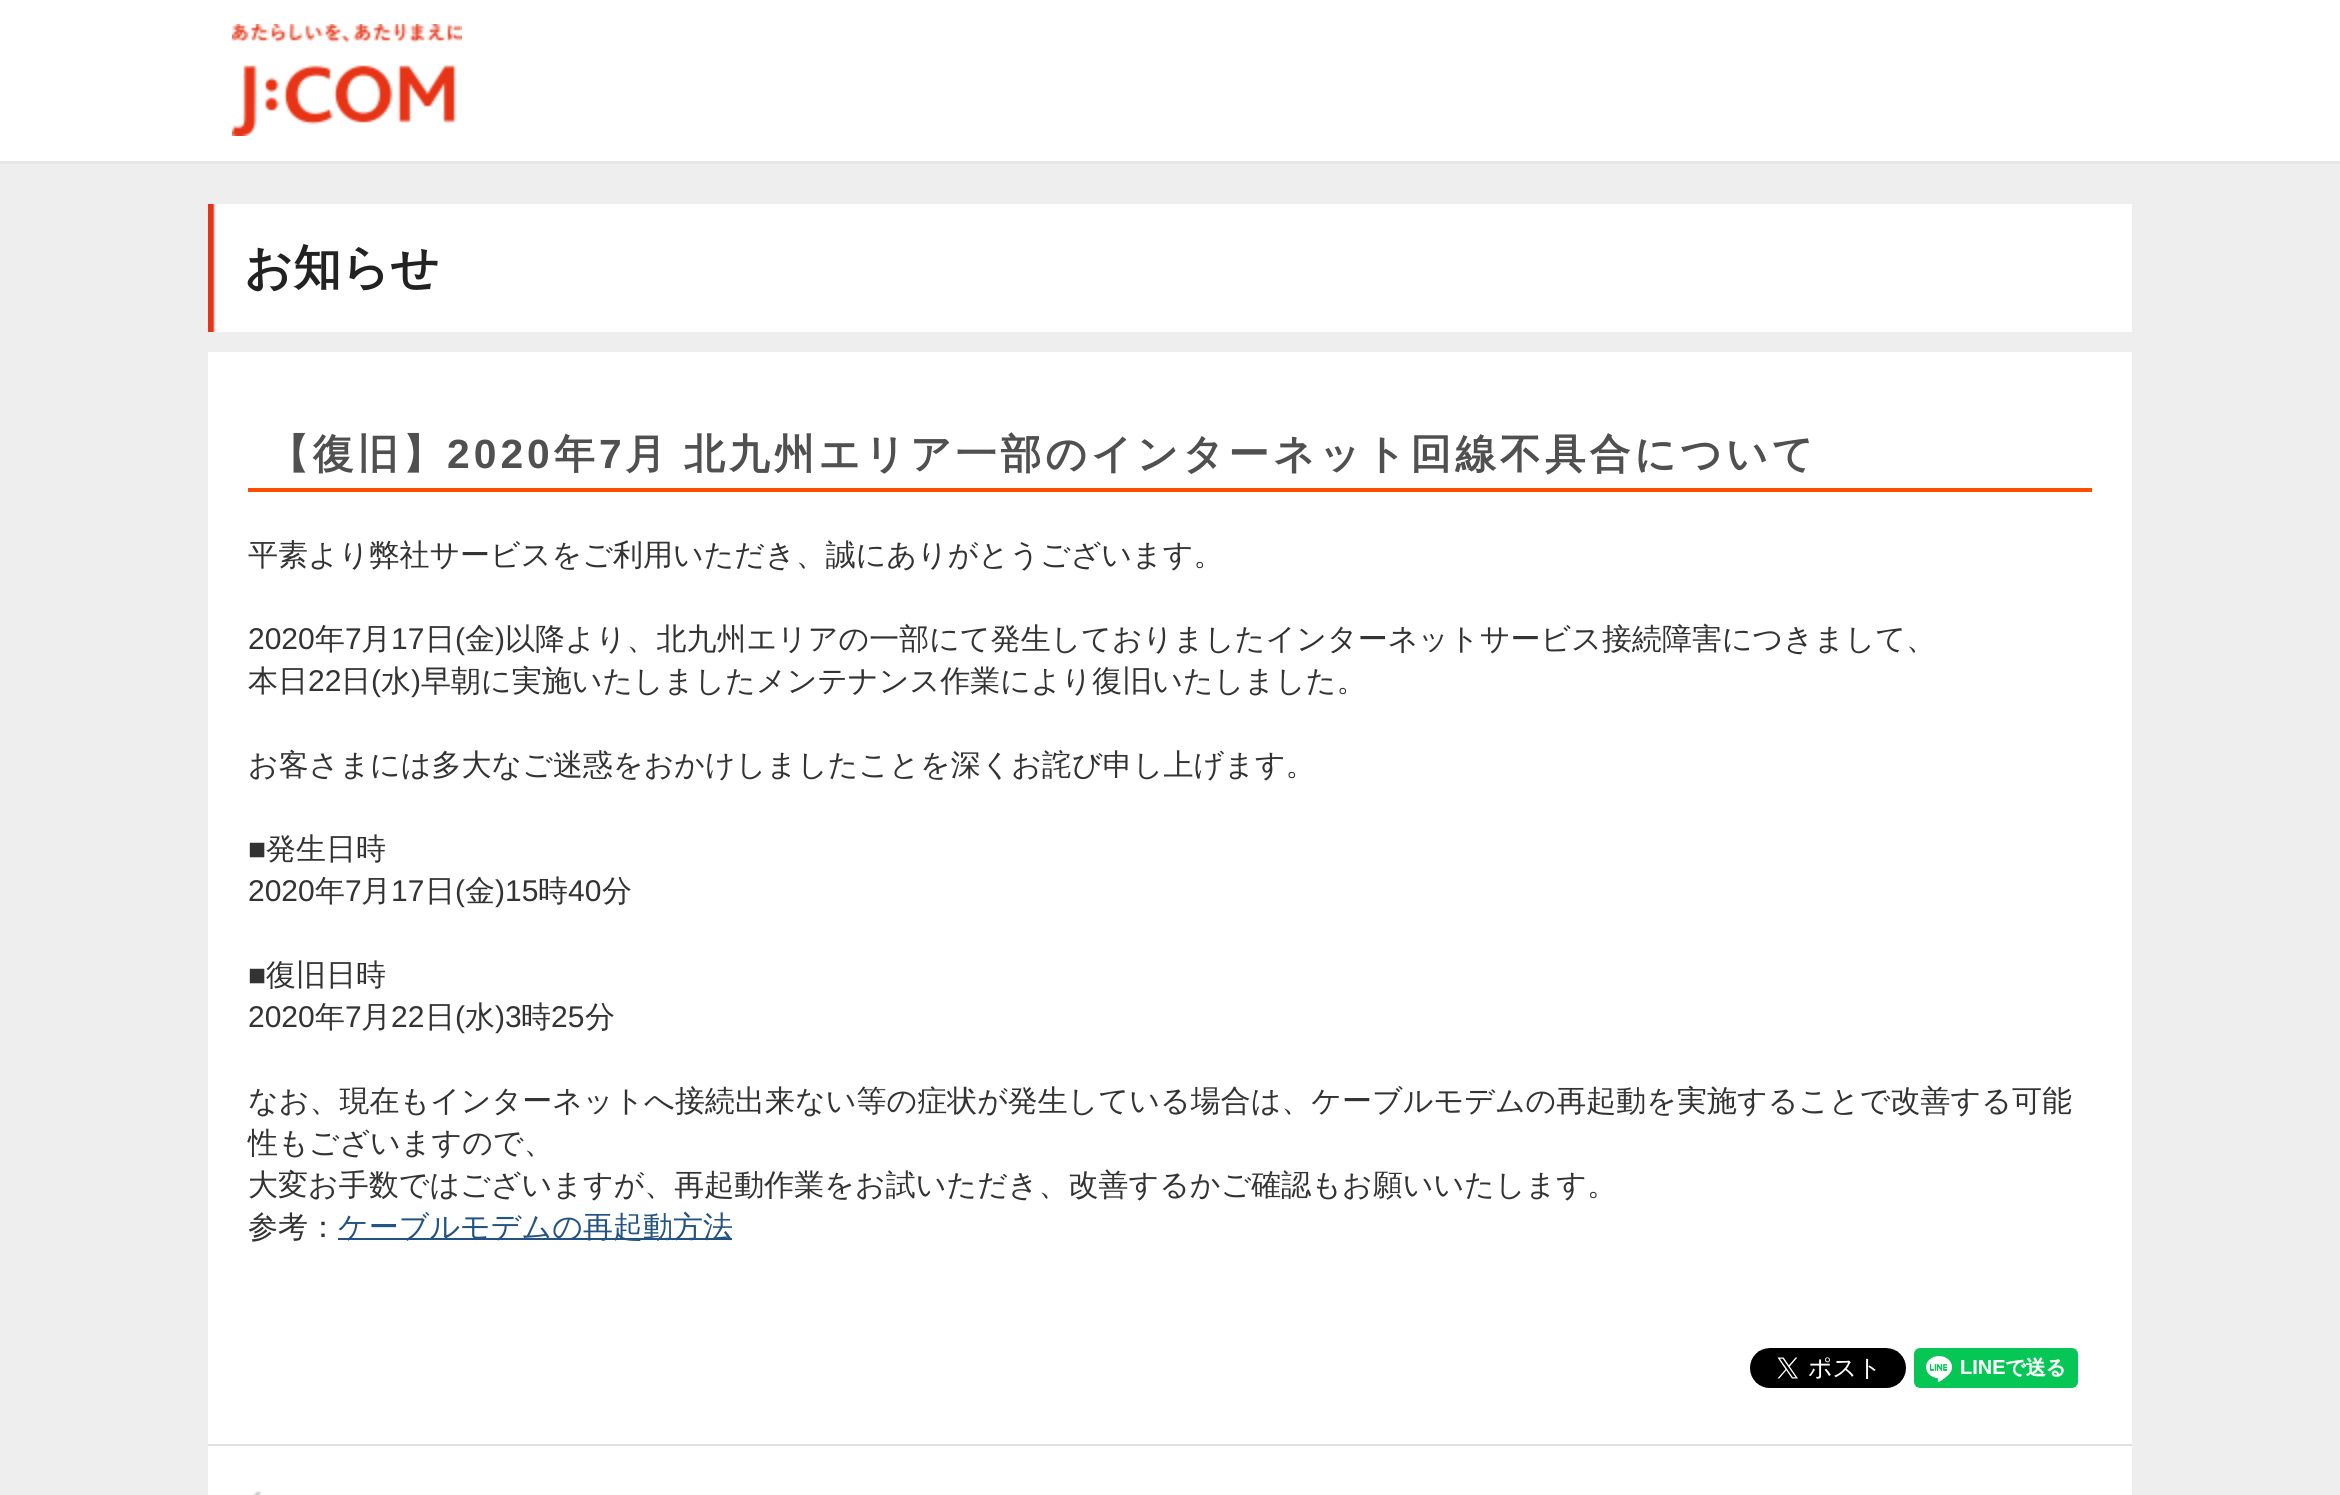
#include <cairo/cairo.h>
#include <math.h>
#include <stddef.h>

static cairo_t *cr;

static void use_color(int r, int g, int b) {
  cairo_set_source_rgb(cr, r / 255.0, g / 255.0, b / 255.0);
}

static void text(double x, double y, const char *s, const char *family, double size, int italic, int bold, int r, int g, int b) {
  cairo_select_font_face(cr, family, italic ? CAIRO_FONT_SLANT_ITALIC : CAIRO_FONT_SLANT_NORMAL,
    bold ? CAIRO_FONT_WEIGHT_BOLD : CAIRO_FONT_WEIGHT_NORMAL);
  cairo_set_font_size(cr, size);
  use_color(r, g, b);
  cairo_move_to(cr, x, y);
  cairo_show_text(cr, s);
}

static void spaced_text(double x, double y, const char *s, double letter, double word) {
  cairo_move_to(cr, x, y);
  while (*s) {
    char ch[5] = {0};
    int n = 0;
    do ch[n++] = *s++; while ((*s & 0xC0) == 0x80);
    cairo_show_text(cr, ch);
    cairo_rel_move_to(cr, letter + word * (*ch == ' '), 0);
  }
}

static void box(double x, double y, double w, double h, int r, int g, int b) {
  use_color(r, g, b);
  cairo_rectangle(cr, x, y, w, h);
  cairo_fill(cr);
}

static void picture(const char *path, double x, double y, double w, double h) {
  cairo_surface_t *image = cairo_image_surface_create_from_png(path);
  cairo_save(cr);
  cairo_set_source_surface(cr, image, x, y);
  cairo_rectangle(cr, x, y, w, h);
  cairo_fill(cr);
  cairo_restore(cr);
  cairo_surface_destroy(image);
}

static void draw(void) {
  use_color(238, 238, 238);
  cairo_paint(cr);
  box(0, 0, 2340, 161, 255, 255, 255);
  box(0, 161, 2340, 3, 230, 230, 230);
  picture("img_01.png", 232, 24, 230, 112);
  box(208, 204, 1924, 1291, 255, 255, 255);
  picture("img_02.png", 208, 204, 7, 128);
  box(208, 332, 1924, 20, 238, 238, 238);
  box(248, 488, 1844, 4, 255, 77, 0);
  box(338, 1238, 394, 2, 34, 83, 131);
  picture("img_03.png", 1750, 1348, 156, 40);
  picture("img_04.png", 1914, 1348, 164, 40);
  box(208, 1444, 1924, 2, 224, 224, 224);
  picture("img_05.png", 253, 1491, 9, 4);
  text(244, 284, "お知らせ", "WenQuanYi Zen Hei", 48, 0, 1, 34, 34, 34);
  cairo_set_font_size(cr, 40.8);
  use_color(80, 80, 80);
  spaced_text(268, 468, "【復旧】", 4, 0);
  cairo_select_font_face(cr, "Liberation Sans", CAIRO_FONT_SLANT_NORMAL, CAIRO_FONT_WEIGHT_BOLD);
  spaced_text(447, 468, "2020", 4, 0);
  cairo_select_font_face(cr, "WenQuanYi Zen Hei", CAIRO_FONT_SLANT_NORMAL, CAIRO_FONT_WEIGHT_BOLD);
  spaced_text(554, 468, "年", 4, 0);
  cairo_select_font_face(cr, "Liberation Sans", CAIRO_FONT_SLANT_NORMAL, CAIRO_FONT_WEIGHT_BOLD);
  spaced_text(599, 468, "7", 4, 0);
  cairo_select_font_face(cr, "WenQuanYi Zen Hei", CAIRO_FONT_SLANT_NORMAL, CAIRO_FONT_WEIGHT_BOLD);
  spaced_text(625, 468, "月 北九州エリア一部のインターネット回線不具合について", 4, -2);
  text(248, 565, "平素より弊社サービスをご利用いただき、誠にありがとうございます。", "WenQuanYi Zen Hei Medium", 30, 0, 0, 51, 51, 51);
  text(248, 649, "2020", "Liberation Sans", 30, 0, 0, 51, 51, 51);
  text(315, 649, "年", "WenQuanYi Zen Hei Medium", 30, 0, 0, 51, 51, 51);
  text(345, 649, "7", "Liberation Sans", 30, 0, 0, 51, 51, 51);
  text(361, 649, "月", "WenQuanYi Zen Hei Medium", 30, 0, 0, 51, 51, 51);
  text(391, 649, "17", "Liberation Sans", 30, 0, 0, 51, 51, 51);
  text(425, 649, "日", "WenQuanYi Zen Hei Medium", 30, 0, 0, 51, 51, 51);
  text(455, 649, "(", "Liberation Sans", 30, 0, 0, 51, 51, 51);
  text(465, 649, "金", "WenQuanYi Zen Hei Medium", 30, 0, 0, 51, 51, 51);
  text(495, 649, ")", "Liberation Sans", 30, 0, 0, 51, 51, 51);
  text(505, 649, "以降より、北九州エリアの一部にて発生しておりましたインターネットサービス接続障害につきまして、", "WenQuanYi Zen Hei Medium", 30, 0, 0, 51, 51, 51);
  text(248, 691, "本日", "WenQuanYi Zen Hei Medium", 30, 0, 0, 51, 51, 51);
  text(308, 691, "22", "Liberation Sans", 30, 0, 0, 51, 51, 51);
  text(341, 691, "日", "WenQuanYi Zen Hei Medium", 30, 0, 0, 51, 51, 51);
  text(371, 691, "(", "Liberation Sans", 30, 0, 0, 51, 51, 51);
  text(381, 691, "水", "WenQuanYi Zen Hei Medium", 30, 0, 0, 51, 51, 51);
  text(411, 691, ")", "Liberation Sans", 30, 0, 0, 51, 51, 51);
  text(421, 691, "早朝に実施いたしましたメンテナンス作業により復旧いたしました。", "WenQuanYi Zen Hei Medium", 30, 0, 0, 51, 51, 51);
  text(248, 775, "お客さまには多大なご迷惑をおかけしましたことを深くお詫び申し上げます。", "WenQuanYi Zen Hei Medium", 30, 0, 0, 51, 51, 51);
  text(248, 859, "■", "Liberation Sans", 30, 0, 0, 51, 51, 51);
  text(266, 859, "発生日時", "WenQuanYi Zen Hei Medium", 30, 0, 0, 51, 51, 51);
  text(248, 901, "2020", "Liberation Sans", 30, 0, 0, 51, 51, 51);
  text(315, 901, "年", "WenQuanYi Zen Hei Medium", 30, 0, 0, 51, 51, 51);
  text(345, 901, "7", "Liberation Sans", 30, 0, 0, 51, 51, 51);
  text(361, 901, "月", "WenQuanYi Zen Hei Medium", 30, 0, 0, 51, 51, 51);
  text(391, 901, "17", "Liberation Sans", 30, 0, 0, 51, 51, 51);
  text(425, 901, "日", "WenQuanYi Zen Hei Medium", 30, 0, 0, 51, 51, 51);
  text(455, 901, "(", "Liberation Sans", 30, 0, 0, 51, 51, 51);
  text(465, 901, "金", "WenQuanYi Zen Hei Medium", 30, 0, 0, 51, 51, 51);
  text(495, 901, ")15", "Liberation Sans", 30, 0, 0, 51, 51, 51);
  text(538, 901, "時", "WenQuanYi Zen Hei Medium", 30, 0, 0, 51, 51, 51);
  text(568, 901, "40", "Liberation Sans", 30, 0, 0, 51, 51, 51);
  text(602, 901, "分", "WenQuanYi Zen Hei Medium", 30, 0, 0, 51, 51, 51);
  text(248, 985, "■", "Liberation Sans", 30, 0, 0, 51, 51, 51);
  text(266, 985, "復旧日時", "WenQuanYi Zen Hei Medium", 30, 0, 0, 51, 51, 51);
  text(248, 1027, "2020", "Liberation Sans", 30, 0, 0, 51, 51, 51);
  text(315, 1027, "年", "WenQuanYi Zen Hei Medium", 30, 0, 0, 51, 51, 51);
  text(345, 1027, "7", "Liberation Sans", 30, 0, 0, 51, 51, 51);
  text(361, 1027, "月", "WenQuanYi Zen Hei Medium", 30, 0, 0, 51, 51, 51);
  text(391, 1027, "22", "Liberation Sans", 30, 0, 0, 51, 51, 51);
  text(425, 1027, "日", "WenQuanYi Zen Hei Medium", 30, 0, 0, 51, 51, 51);
  text(455, 1027, "(", "Liberation Sans", 30, 0, 0, 51, 51, 51);
  text(465, 1027, "水", "WenQuanYi Zen Hei Medium", 30, 0, 0, 51, 51, 51);
  text(495, 1027, ")3", "Liberation Sans", 30, 0, 0, 51, 51, 51);
  text(521, 1027, "時", "WenQuanYi Zen Hei Medium", 30, 0, 0, 51, 51, 51);
  text(551, 1027, "25", "Liberation Sans", 30, 0, 0, 51, 51, 51);
  text(585, 1027, "分", "WenQuanYi Zen Hei Medium", 30, 0, 0, 51, 51, 51);
  text(248, 1111, "なお、現在もインターネットへ接続出来ない等の症状が発生している場合は、ケーブルモデムの再起動を実施することで改善する可能", "WenQuanYi Zen Hei Medium", 30, 0, 0, 51, 51, 51);
  text(248, 1153, "性もございますので、", "WenQuanYi Zen Hei Medium", 30, 0, 0, 51, 51, 51);
  text(248, 1195, "大変お手数ではございますが、再起動作業をお試いただき、改善するかご確認もお願いいたします。", "WenQuanYi Zen Hei Medium", 30, 0, 0, 51, 51, 51);
  text(248, 1237, "参考：", "WenQuanYi Zen Hei Medium", 30, 0, 0, 51, 51, 51);
  text(338, 1237, "ケーブルモデムの再起動方法", "WenQuanYi Zen Hei Medium", 30, 0, 0, 34, 83, 131);
}

int main(void) {
  cairo_surface_t *surface = cairo_image_surface_create(CAIRO_FORMAT_RGB24, 2340, 1495);
  cr = cairo_create(surface);
  cairo_font_options_t *options = cairo_font_options_create();
  cairo_font_options_set_hint_metrics(options, CAIRO_HINT_METRICS_OFF);
  cairo_font_options_set_hint_style(options, CAIRO_HINT_STYLE_NONE);
  cairo_set_font_options(cr, options);
  cairo_set_miter_limit(cr, 4);
  draw();
  cairo_surface_write_to_png(surface, "out.png");
  cairo_font_options_destroy(options);
  cairo_destroy(cr);
  cairo_surface_destroy(surface);
  return 0;
}
